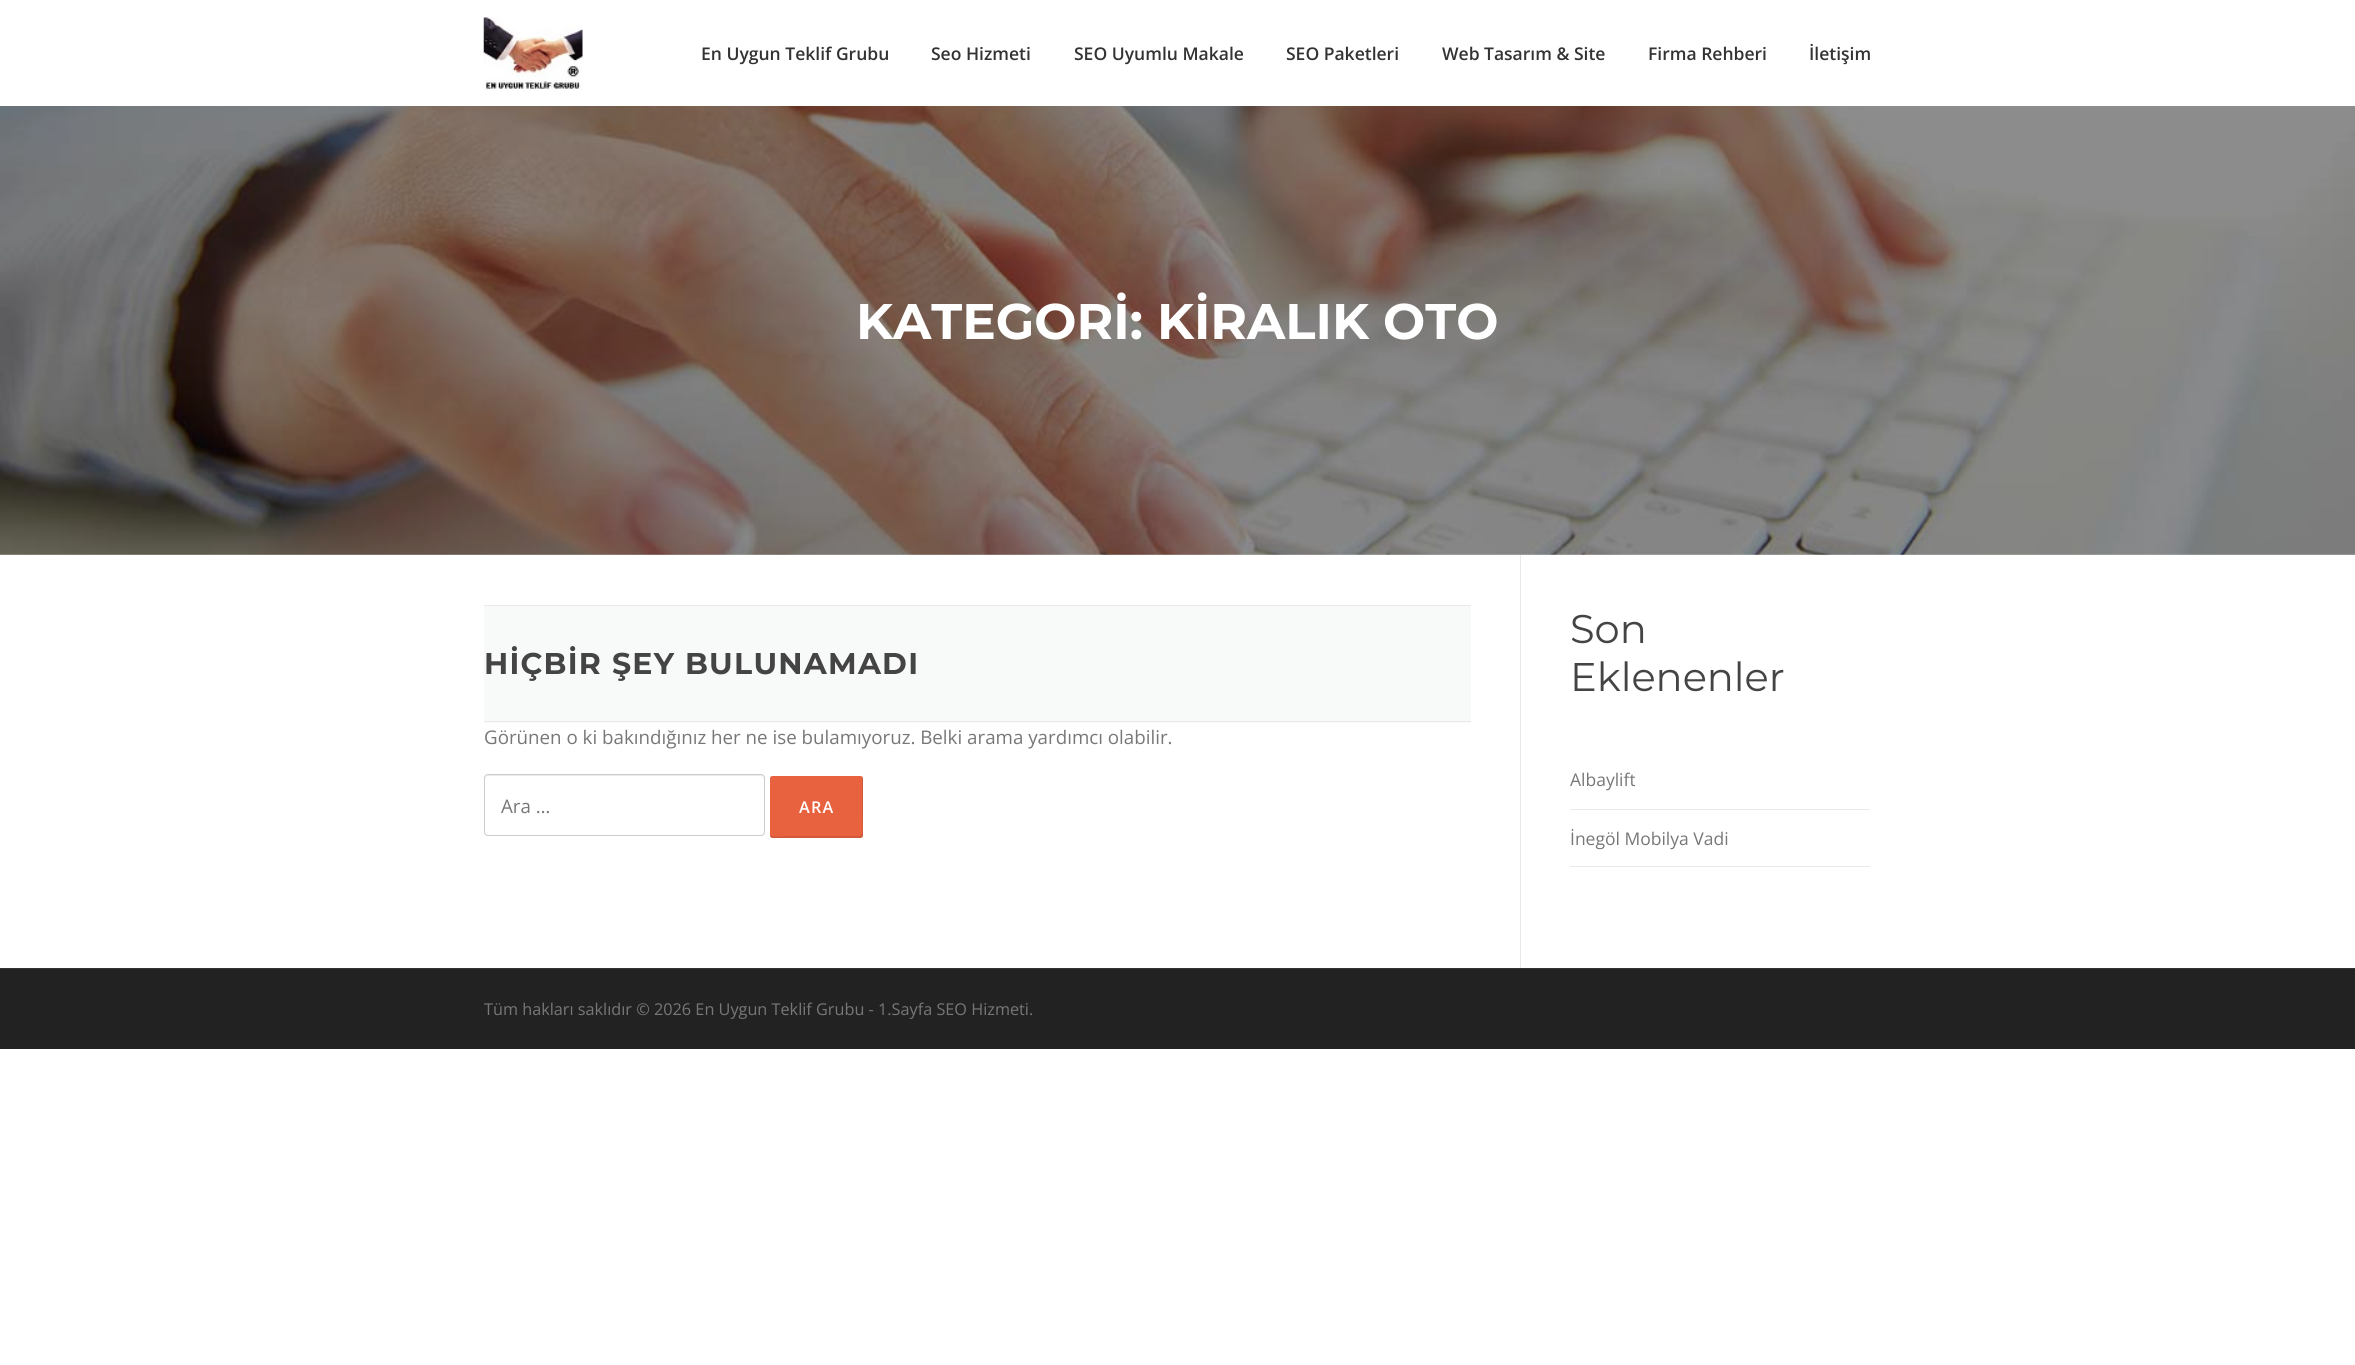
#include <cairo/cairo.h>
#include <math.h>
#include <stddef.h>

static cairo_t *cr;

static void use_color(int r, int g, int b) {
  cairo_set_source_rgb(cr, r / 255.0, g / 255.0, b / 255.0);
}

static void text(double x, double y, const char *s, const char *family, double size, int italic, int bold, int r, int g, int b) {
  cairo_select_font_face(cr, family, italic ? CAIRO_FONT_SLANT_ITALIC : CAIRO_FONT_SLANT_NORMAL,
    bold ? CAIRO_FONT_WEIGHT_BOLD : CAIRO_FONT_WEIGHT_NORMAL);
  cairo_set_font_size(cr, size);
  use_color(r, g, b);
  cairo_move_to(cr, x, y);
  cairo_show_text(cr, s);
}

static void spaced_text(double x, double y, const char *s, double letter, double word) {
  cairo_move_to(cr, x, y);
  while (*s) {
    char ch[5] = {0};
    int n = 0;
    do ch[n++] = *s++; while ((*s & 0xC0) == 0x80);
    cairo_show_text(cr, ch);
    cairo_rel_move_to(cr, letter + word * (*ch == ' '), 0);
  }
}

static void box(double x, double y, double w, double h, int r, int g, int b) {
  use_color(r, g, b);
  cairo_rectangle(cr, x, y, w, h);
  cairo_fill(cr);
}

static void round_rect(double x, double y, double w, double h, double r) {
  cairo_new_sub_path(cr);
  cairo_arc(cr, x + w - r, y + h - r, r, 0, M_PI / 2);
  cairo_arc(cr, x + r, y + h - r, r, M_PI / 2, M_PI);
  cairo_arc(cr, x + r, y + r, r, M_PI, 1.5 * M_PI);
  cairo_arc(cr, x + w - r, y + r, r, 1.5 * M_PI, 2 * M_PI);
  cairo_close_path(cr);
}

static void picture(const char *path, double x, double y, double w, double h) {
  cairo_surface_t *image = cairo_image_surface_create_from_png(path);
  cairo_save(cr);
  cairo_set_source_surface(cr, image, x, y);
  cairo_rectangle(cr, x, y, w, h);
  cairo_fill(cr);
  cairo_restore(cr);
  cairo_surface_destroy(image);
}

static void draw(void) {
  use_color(255, 255, 255);
  cairo_paint(cr);
  picture("img_01.png", 483, 17, 100, 74);
  picture("img_02.png", 0, 106, 2355, 449);
  box(484, 606, 987, 117, 248, 249, 249);
  box(484, 605, 987, 1, 233, 233, 233);
  box(484, 721, 987, 1, 233, 233, 233);
  use_color(235, 235, 235);
  cairo_new_path(cr);
  cairo_move_to(cr, 488, 776);
  cairo_line_to(cr, 761, 776);
  cairo_curve_to(cr, 763, 776, 764, 777, 764, 779);
  cairo_line_to(cr, 764, 778);
  cairo_curve_to(cr, 764, 776, 763, 775, 762, 775);
  cairo_line_to(cr, 488, 775);
  cairo_curve_to(cr, 486, 775, 485, 776, 485, 778);
  cairo_line_to(cr, 485, 779);
  cairo_curve_to(cr, 485, 777, 486, 776, 488, 776);
  cairo_close_path(cr);
  cairo_fill(cr);
  round_rect(484.5, 774.5, 280, 61, 3.5);
  use_color(204, 204, 204);
  cairo_set_line_width(cr, 1);
  cairo_stroke(cr);
  use_color(232, 98, 64);
  round_rect(770, 776, 93, 62, 2.5);
  cairo_fill(cr);
  cairo_set_source_rgba(cr, 0, 0, 0, 0.1);
  cairo_new_path(cr);
  cairo_move_to(cr, 770, 834);
  cairo_line_to(cr, 770, 836);
  cairo_curve_to(cr, 770, 837, 771, 838, 772, 838);
  cairo_line_to(cr, 860, 838);
  cairo_curve_to(cr, 862, 838, 863, 837, 863, 836);
  cairo_line_to(cr, 863, 778);
  cairo_curve_to(cr, 863, 778, 862, 777, 862, 776);
  cairo_line_to(cr, 862, 815);
  cairo_curve_to(cr, 862, 839, 867, 836, 845, 836);
  cairo_line_to(cr, 787, 836);
  cairo_curve_to(cr, 784, 836, 770, 838, 770, 834);
  cairo_close_path(cr);
  cairo_fill(cr);
  box(1520, 555, 1, 413, 233, 233, 233);
  box(1570, 809, 300, 1, 233, 233, 233);
  box(1570, 866, 300, 1, 233, 233, 233);
  box(0, 969, 2355, 80, 34, 34, 34);
  box(0, 968, 2355, 1, 51, 51, 51);
  text(701, 60, "En Uygun Teklif Grubu", "Open Sans SemiBold", 17.5, 0, 0, 51, 51, 51);
  text(931, 60, "Seo Hizmeti", "Open Sans SemiBold", 17.5, 0, 0, 51, 51, 51);
  text(1074, 60, "SEO Uyumlu Makale", "Open Sans SemiBold", 17.5, 0, 0, 51, 51, 51);
  text(1286, 60, "SEO Paketleri", "Open Sans SemiBold", 17.5, 0, 0, 51, 51, 51);
  text(1442, 60, "Web Tasarım & Site", "Open Sans SemiBold", 17.5, 0, 0, 51, 51, 51);
  text(1648, 60, "Firma Rehberi", "Open Sans SemiBold", 17.5, 0, 0, 51, 51, 51);
  text(1809, 60, "İletişim", "Open Sans SemiBold", 17.5, 0, 0, 51, 51, 51);
  text(856, 339, "KATEGORİ: KİRALIK OTO", "Montserrat", 50, 0, 1, 255, 255, 255);
  cairo_set_font_size(cr, 30);
  use_color(68, 68, 68);
  spaced_text(484, 674, "HİÇBİR ŞEY BULUNAMADI", 1.25, 0);
  text(484, 744, "Görünen o ki bakındığınız her ne ise bulamıyoruz. Belki arama yardımcı olabilir.", "Open Sans", 18.75, 0, 0, 119, 119, 119);
  text(501, 813, "Ara …", "Open Sans", 18.75, 0, 0, 119, 119, 119);
  cairo_select_font_face(cr, "Open Sans SemiBold", CAIRO_FONT_SLANT_NORMAL, CAIRO_FONT_WEIGHT_NORMAL);
  cairo_set_font_size(cr, 16.25);
  use_color(255, 255, 255);
  spaced_text(799, 813, "ARA", 1.25, 0);
  text(1570, 643, "Son", "Montserrat", 40, 0, 0, 68, 68, 68);
  text(1570, 691, "Eklenenler", "Montserrat", 40, 0, 0, 68, 68, 68);
  text(1570, 786, "Albaylift", "Open Sans", 17.5, 0, 0, 119, 119, 119);
  text(1570, 845, "İnegöl Mobilya Vadi", "Open Sans", 17.5, 0, 0, 119, 119, 119);
  text(484, 1015, "Tüm hakları saklıdır © 2026 En Uygun Teklif Grubu - 1.Sayfa SEO Hizmeti.", "Open Sans", 16.25, 0, 0, 119, 119, 119);
}

int main(void) {
  cairo_surface_t *surface = cairo_image_surface_create(CAIRO_FORMAT_RGB24, 2355, 1365);
  cr = cairo_create(surface);
  cairo_font_options_t *options = cairo_font_options_create();
  cairo_font_options_set_hint_metrics(options, CAIRO_HINT_METRICS_OFF);
  cairo_font_options_set_hint_style(options, CAIRO_HINT_STYLE_NONE);
  cairo_set_font_options(cr, options);
  cairo_set_miter_limit(cr, 4);
  draw();
  cairo_surface_write_to_png(surface, "out.png");
  cairo_font_options_destroy(options);
  cairo_destroy(cr);
  cairo_surface_destroy(surface);
  return 0;
}
